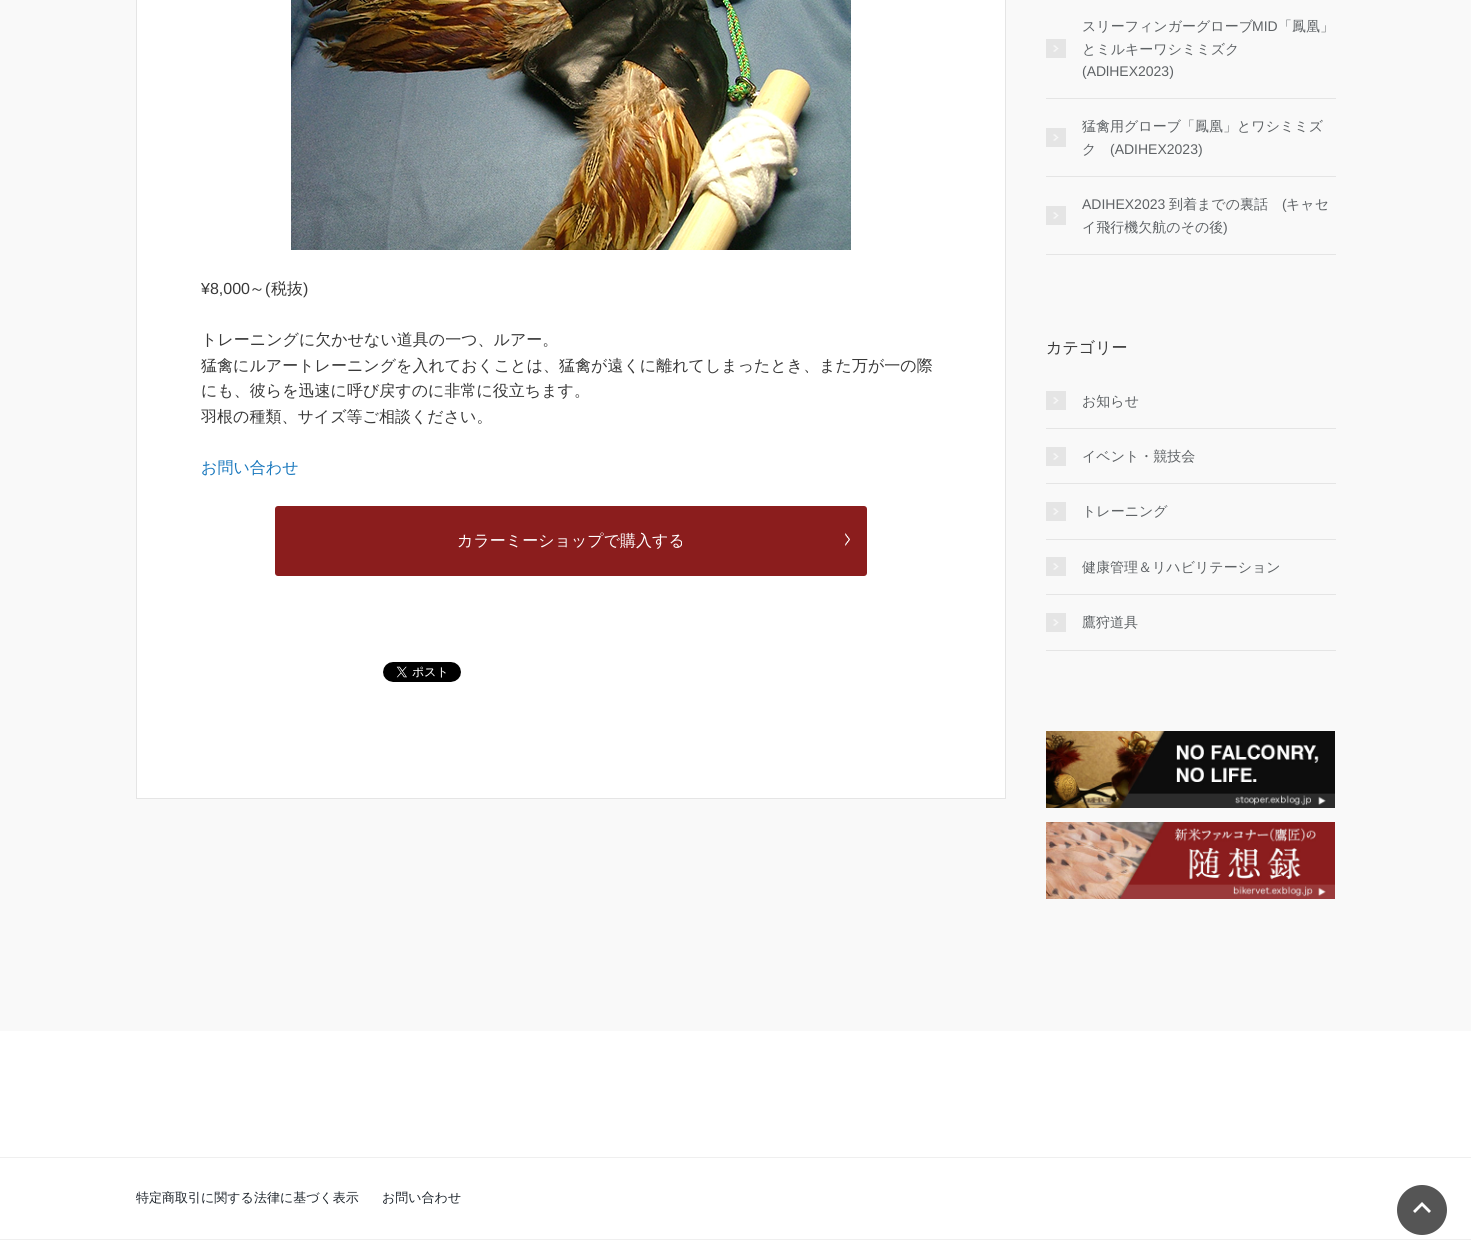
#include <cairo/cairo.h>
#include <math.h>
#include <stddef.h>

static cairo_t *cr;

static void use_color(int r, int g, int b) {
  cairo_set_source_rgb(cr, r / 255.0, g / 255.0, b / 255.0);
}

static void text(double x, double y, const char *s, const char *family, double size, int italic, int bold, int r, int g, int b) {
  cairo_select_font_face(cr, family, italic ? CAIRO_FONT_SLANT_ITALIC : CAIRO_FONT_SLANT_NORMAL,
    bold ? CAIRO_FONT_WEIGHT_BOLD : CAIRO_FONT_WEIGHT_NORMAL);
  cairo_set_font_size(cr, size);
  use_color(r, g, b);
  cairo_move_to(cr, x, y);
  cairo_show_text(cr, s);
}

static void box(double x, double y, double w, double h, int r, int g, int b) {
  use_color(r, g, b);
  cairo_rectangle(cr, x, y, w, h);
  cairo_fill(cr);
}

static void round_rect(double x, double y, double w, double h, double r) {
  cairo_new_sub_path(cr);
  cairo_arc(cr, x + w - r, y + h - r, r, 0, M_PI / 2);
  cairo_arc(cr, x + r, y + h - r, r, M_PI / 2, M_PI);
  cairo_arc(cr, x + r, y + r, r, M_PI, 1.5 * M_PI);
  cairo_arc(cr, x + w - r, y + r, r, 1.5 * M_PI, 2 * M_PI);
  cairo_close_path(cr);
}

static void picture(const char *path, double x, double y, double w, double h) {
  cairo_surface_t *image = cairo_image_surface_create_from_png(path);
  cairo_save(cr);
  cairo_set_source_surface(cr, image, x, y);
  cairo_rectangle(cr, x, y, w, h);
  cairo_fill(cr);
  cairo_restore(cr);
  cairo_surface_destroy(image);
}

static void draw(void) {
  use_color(249, 249, 249);
  cairo_paint(cr);
  use_color(255, 255, 255);
  cairo_rectangle(cr, 136.5, -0.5, 869, 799);
  cairo_fill_preserve(cr);
  use_color(229, 229, 229);
  cairo_set_line_width(cr, 1);
  cairo_stroke(cr);
  picture("img_01.png", 291, 0, 560, 250);
  use_color(139, 29, 29);
  round_rect(276, 507, 590, 68, 2);
  cairo_fill_preserve(cr);
  cairo_set_line_width(cr, 2);
  cairo_stroke(cr);
  picture("img_02.png", 845, 533, 5, 13);
  picture("img_03.png", 383, 662, 78, 20);
  box(1046, 98, 290, 1, 229, 229, 229);
  picture("img_04.png", 1046, 39, 20, 19);
  box(1046, 176, 290, 1, 229, 229, 229);
  picture("img_04.png", 1046, 128, 20, 19);
  box(1046, 254, 290, 1, 229, 229, 229);
  picture("img_04.png", 1046, 206, 20, 19);
  box(1046, 428, 290, 1, 229, 229, 229);
  picture("img_04.png", 1046, 391, 20, 19);
  box(1046, 483, 290, 1, 229, 229, 229);
  picture("img_04.png", 1046, 447, 20, 19);
  box(1046, 539, 290, 1, 229, 229, 229);
  picture("img_04.png", 1046, 502, 20, 19);
  box(1046, 594, 290, 1, 229, 229, 229);
  picture("img_04.png", 1046, 557, 20, 19);
  box(1046, 650, 290, 1, 229, 229, 229);
  picture("img_04.png", 1046, 613, 20, 19);
  picture("img_05.png", 1046, 731, 289, 77);
  picture("img_06.png", 1046, 822, 289, 77);
  box(0, 1031, 1471, 126, 255, 255, 255);
  box(0, 1158, 1471, 81, 255, 255, 255);
  box(0, 1157, 1471, 1, 239, 239, 239);
  box(0, 1240, 1471, 19, 255, 255, 255);
  box(0, 1239, 1471, 1, 239, 239, 239);
  use_color(85, 85, 85);
  cairo_arc(cr, 1422, 1210, 25, 0, 2 * M_PI);
  cairo_fill(cr);
  use_color(255, 255, 255);
  cairo_new_path(cr);
  cairo_move_to(cr, 1415, 1213);
  cairo_line_to(cr, 1422, 1206);
  cairo_line_to(cr, 1429, 1213);
  cairo_line_to(cr, 1431, 1211);
  cairo_line_to(cr, 1422, 1202);
  cairo_line_to(cr, 1413, 1211);
  cairo_close_path(cr);
  cairo_fill(cr);
  text(201, 294, "¥8,000", "Liberation Sans", 16, 0, 0, 56, 56, 56);
  text(249, 294, "～", "WenQuanYi Zen Hei Medium", 16, 0, 0, 56, 56, 56);
  text(265, 294, "(", "Liberation Sans", 16, 0, 0, 56, 56, 56);
  text(271, 294, "税抜", "WenQuanYi Zen Hei Medium", 16, 0, 0, 56, 56, 56);
  text(303, 294, ")", "Liberation Sans", 16, 0, 0, 56, 56, 56);
  text(201, 345, "トレーニングに欠かせない道具の一つ、ルアー。", "WenQuanYi Zen Hei Medium", 16, 0, 0, 56, 56, 56);
  text(201, 371, "猛禽にルアートレーニングを入れておくことは、猛禽が遠くに離れてしまったとき、また万が一の際", "WenQuanYi Zen Hei Medium", 16, 0, 0, 56, 56, 56);
  text(201, 396, "にも、彼らを迅速に呼び戻すのに非常に役立ちます。", "WenQuanYi Zen Hei Medium", 16, 0, 0, 56, 56, 56);
  text(201, 422, "羽根の種類、サイズ等ご相談ください。", "WenQuanYi Zen Hei Medium", 16, 0, 0, 56, 56, 56);
  text(201, 473, "お問い合わせ", "WenQuanYi Zen Hei Medium", 16, 0, 0, 24, 119, 189);
  text(457, 546, "カラーミーショップで購入する", "WenQuanYi Zen Hei Medium", 16, 0, 0, 255, 255, 255);
  text(1082, 31, "スリーフィンガーグローブ", "WenQuanYi Zen Hei Medium", 14, 0, 0, 94, 98, 101);
  text(1252, 31, "MID", "Liberation Sans", 14, 0, 0, 94, 98, 101);
  text(1278, 31, "「鳳凰」", "WenQuanYi Zen Hei Medium", 14, 0, 0, 94, 98, 101);
  text(1082, 54, "とミルキーワシミミズク", "WenQuanYi Zen Hei Medium", 14, 0, 0, 94, 98, 101);
  text(1082, 76, "(ADlHEX2023)", "Liberation Sans", 14, 0, 0, 94, 98, 101);
  text(1082, 131, "猛禽用グローブ「鳳凰」とワシミミズ", "WenQuanYi Zen Hei Medium", 14, 0, 0, 94, 98, 101);
  text(1082, 154, "ク", "WenQuanYi Zen Hei Medium", 14, 0, 0, 94, 98, 101);
  text(1110, 154, "(ADIHEX2023)", "Liberation Sans", 14, 0, 0, 94, 98, 101);
  text(1082, 209, "ADIHEX2023", "Liberation Sans", 14, 0, 0, 94, 98, 101);
  text(1169, 209, "到着までの裏話", "WenQuanYi Zen Hei Medium", 14, 0, 0, 94, 98, 101);
  text(1282, 209, "(", "Liberation Sans", 14, 0, 0, 94, 98, 101);
  text(1286, 209, "キャセ", "WenQuanYi Zen Hei Medium", 14, 0, 0, 94, 98, 101);
  text(1082, 232, "イ飛行機欠航のその後", "WenQuanYi Zen Hei Medium", 14, 0, 0, 94, 98, 101);
  text(1223, 232, ")", "Liberation Sans", 14, 0, 0, 94, 98, 101);
  text(1046, 353, "カテゴリー", "WenQuanYi Zen Hei Medium", 16, 0, 0, 56, 56, 56);
  text(1082, 406, "お知らせ", "WenQuanYi Zen Hei Medium", 14, 0, 0, 94, 98, 101);
  text(1082, 461, "イベント・競技会", "WenQuanYi Zen Hei Medium", 14, 0, 0, 94, 98, 101);
  text(1082, 516, "トレーニング", "WenQuanYi Zen Hei Medium", 14, 0, 0, 94, 98, 101);
  text(1082, 572, "健康管理＆リハビリテーション", "WenQuanYi Zen Hei Medium", 14, 0, 0, 94, 98, 101);
  text(1082, 627, "鷹狩道具", "WenQuanYi Zen Hei Medium", 14, 0, 0, 94, 98, 101);
  cairo_save(cr);
  cairo_rectangle(cr, 136, 1188, 1200, 21);
  cairo_clip(cr);
  text(136, 1202, "特定商取引に関する法律に基づく表示", "WenQuanYi Zen Hei Medium", 13, 0, 0, 30, 37, 44);
  cairo_restore(cr);
  text(382, 1202, "お問い合わせ", "WenQuanYi Zen Hei Medium", 13, 0, 0, 30, 37, 44);
}

int main(void) {
  cairo_surface_t *surface = cairo_image_surface_create(CAIRO_FORMAT_RGB24, 1471, 1259);
  cr = cairo_create(surface);
  cairo_font_options_t *options = cairo_font_options_create();
  cairo_font_options_set_hint_metrics(options, CAIRO_HINT_METRICS_OFF);
  cairo_font_options_set_hint_style(options, CAIRO_HINT_STYLE_NONE);
  cairo_set_font_options(cr, options);
  cairo_set_miter_limit(cr, 4);
  draw();
  cairo_surface_write_to_png(surface, "out.png");
  cairo_font_options_destroy(options);
  cairo_destroy(cr);
  cairo_surface_destroy(surface);
  return 0;
}
